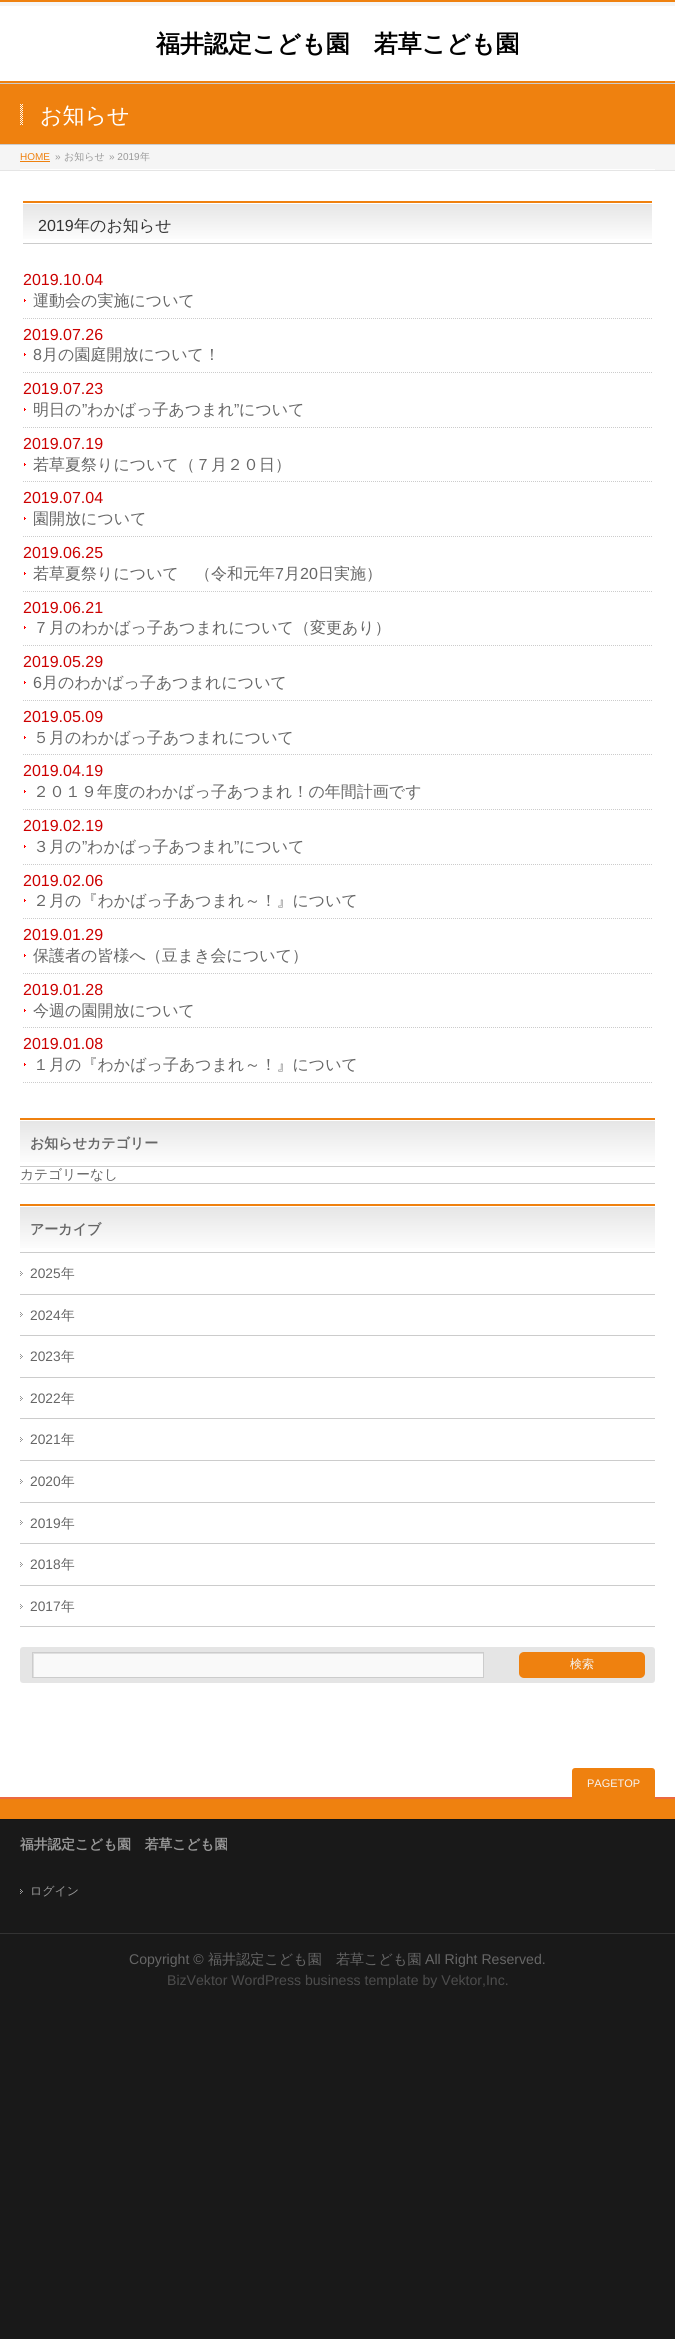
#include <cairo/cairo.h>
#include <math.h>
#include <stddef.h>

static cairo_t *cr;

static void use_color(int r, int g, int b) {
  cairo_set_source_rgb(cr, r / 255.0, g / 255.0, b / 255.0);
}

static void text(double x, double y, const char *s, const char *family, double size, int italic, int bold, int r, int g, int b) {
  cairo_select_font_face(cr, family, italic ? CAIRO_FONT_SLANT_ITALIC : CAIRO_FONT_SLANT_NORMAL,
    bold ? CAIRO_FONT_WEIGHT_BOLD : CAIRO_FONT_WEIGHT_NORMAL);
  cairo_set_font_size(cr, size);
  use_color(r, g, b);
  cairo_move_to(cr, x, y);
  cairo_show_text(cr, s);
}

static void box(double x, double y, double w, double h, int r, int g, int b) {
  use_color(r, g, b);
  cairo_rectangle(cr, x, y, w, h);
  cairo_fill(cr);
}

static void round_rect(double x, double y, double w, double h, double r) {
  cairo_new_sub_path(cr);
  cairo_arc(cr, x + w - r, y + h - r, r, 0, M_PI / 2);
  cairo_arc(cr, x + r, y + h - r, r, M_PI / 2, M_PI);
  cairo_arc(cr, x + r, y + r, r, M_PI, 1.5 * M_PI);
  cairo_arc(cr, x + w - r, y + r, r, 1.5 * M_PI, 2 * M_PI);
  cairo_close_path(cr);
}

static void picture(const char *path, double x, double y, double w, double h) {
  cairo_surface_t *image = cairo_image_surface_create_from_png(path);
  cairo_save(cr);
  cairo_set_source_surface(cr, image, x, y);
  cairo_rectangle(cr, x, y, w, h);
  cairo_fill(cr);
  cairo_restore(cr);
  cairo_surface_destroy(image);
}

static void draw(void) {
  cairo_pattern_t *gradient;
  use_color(25, 25, 25);
  cairo_paint(cr);
  box(0, 2, 675, 4, 245, 245, 245);
  box(0, 0, 675, 2, 239, 129, 15);
  box(0, 6, 675, 75, 255, 255, 255);
  box(0, 81, 675, 2, 239, 129, 15);
  box(0, 83, 675, 1, 204, 204, 204);
  box(0, 84, 675, 60, 239, 129, 15);
  box(0, 144, 675, 1, 204, 204, 204);
  picture("img_01.png", 20, 104, 3, 21);
  box(0, 145, 675, 25, 245, 245, 245);
  box(0, 170, 675, 1, 229, 229, 229);
  box(20, 169, 635, 1, 255, 255, 255);
  box(20, 161, 30, 1, 239, 129, 15);
  box(0, 171, 675, 1626, 255, 255, 255);
  gradient = cairo_pattern_create_linear(23, 203, 23, 243);
  cairo_pattern_add_color_stop_rgba(gradient, 0, 0.898, 0.898, 0.898, 1);
  cairo_pattern_add_color_stop_rgba(gradient, 1, 1, 1, 1, 1);
  cairo_set_source(cr, gradient);
  cairo_pattern_destroy(gradient);
  cairo_rectangle(cr, 23, 204, 629, 35);
  cairo_fill(cr);
  box(23, 201, 629, 2, 239, 129, 15);
  box(23, 243, 629, 1, 204, 204, 204);
  cairo_new_path(cr);
  cairo_move_to(cr, 23, 318.5);
  cairo_line_to(cr, 652, 318.5);
  cairo_set_line_width(cr, 1);
  cairo_set_dash(cr, (double[]){1, 1}, 2, 0);
  cairo_stroke(cr);
  picture("img_02.png", 24, 299, 2, 3);
  cairo_new_path(cr);
  cairo_move_to(cr, 23, 372.5);
  cairo_line_to(cr, 652, 372.5);
  cairo_stroke(cr);
  picture("img_02.png", 24, 353, 2, 3);
  cairo_new_path(cr);
  cairo_move_to(cr, 23, 427.5);
  cairo_line_to(cr, 652, 427.5);
  cairo_stroke(cr);
  picture("img_02.png", 24, 408, 2, 3);
  cairo_new_path(cr);
  cairo_move_to(cr, 23, 481.5);
  cairo_line_to(cr, 652, 481.5);
  cairo_stroke(cr);
  picture("img_02.png", 24, 463, 2, 3);
  cairo_new_path(cr);
  cairo_move_to(cr, 23, 536.5);
  cairo_line_to(cr, 652, 536.5);
  cairo_stroke(cr);
  picture("img_02.png", 24, 517, 2, 3);
  cairo_new_path(cr);
  cairo_move_to(cr, 23, 591.5);
  cairo_line_to(cr, 652, 591.5);
  cairo_stroke(cr);
  picture("img_02.png", 24, 572, 2, 3);
  cairo_new_path(cr);
  cairo_move_to(cr, 23, 645.5);
  cairo_line_to(cr, 652, 645.5);
  cairo_stroke(cr);
  picture("img_02.png", 24, 626, 2, 3);
  cairo_new_path(cr);
  cairo_move_to(cr, 23, 700.5);
  cairo_line_to(cr, 652, 700.5);
  cairo_stroke(cr);
  picture("img_02.png", 24, 681, 2, 3);
  cairo_new_path(cr);
  cairo_move_to(cr, 23, 754.5);
  cairo_line_to(cr, 652, 754.5);
  cairo_stroke(cr);
  picture("img_02.png", 24, 736, 2, 3);
  cairo_new_path(cr);
  cairo_move_to(cr, 23, 809.5);
  cairo_line_to(cr, 652, 809.5);
  cairo_stroke(cr);
  picture("img_02.png", 24, 790, 2, 3);
  cairo_new_path(cr);
  cairo_move_to(cr, 23, 864.5);
  cairo_line_to(cr, 652, 864.5);
  cairo_stroke(cr);
  picture("img_02.png", 24, 845, 2, 3);
  cairo_new_path(cr);
  cairo_move_to(cr, 23, 918.5);
  cairo_line_to(cr, 652, 918.5);
  cairo_stroke(cr);
  picture("img_02.png", 24, 899, 2, 3);
  cairo_new_path(cr);
  cairo_move_to(cr, 23, 973.5);
  cairo_line_to(cr, 652, 973.5);
  cairo_stroke(cr);
  picture("img_02.png", 24, 954, 2, 3);
  cairo_new_path(cr);
  cairo_move_to(cr, 23, 1027.5);
  cairo_line_to(cr, 652, 1027.5);
  cairo_stroke(cr);
  picture("img_02.png", 24, 1009, 2, 3);
  cairo_new_path(cr);
  cairo_move_to(cr, 23, 1082.5);
  cairo_line_to(cr, 652, 1082.5);
  cairo_stroke(cr);
  picture("img_02.png", 24, 1063, 2, 3);
  gradient = cairo_pattern_create_linear(20, 1120, 20, 1166);
  cairo_pattern_add_color_stop_rgba(gradient, 0, 0.898, 0.898, 0.898, 1);
  cairo_pattern_add_color_stop_rgba(gradient, 1, 1, 1, 1, 1);
  cairo_set_source(cr, gradient);
  cairo_pattern_destroy(gradient);
  cairo_rectangle(cr, 20, 1121, 635, 41);
  cairo_fill(cr);
  box(20, 1118, 635, 2, 239, 129, 15);
  box(20, 1166, 635, 1, 204, 204, 204);
  box(20, 1183, 635, 1, 204, 204, 204);
  gradient = cairo_pattern_create_linear(20, 1206, 20, 1252);
  cairo_pattern_add_color_stop_rgba(gradient, 0, 0.898, 0.898, 0.898, 1);
  cairo_pattern_add_color_stop_rgba(gradient, 1, 1, 1, 1, 1);
  cairo_set_source(cr, gradient);
  cairo_pattern_destroy(gradient);
  cairo_rectangle(cr, 20, 1207, 635, 41);
  cairo_fill(cr);
  box(20, 1204, 635, 2, 239, 129, 15);
  box(20, 1252, 635, 1, 204, 204, 204);
  box(20, 1294, 635, 1, 204, 204, 204);
  picture("img_03.png", 20, 1271, 3, 5);
  box(20, 1335, 635, 1, 204, 204, 204);
  picture("img_03.png", 20, 1312, 3, 5);
  box(20, 1377, 635, 1, 204, 204, 204);
  picture("img_03.png", 20, 1354, 3, 5);
  box(20, 1418, 635, 1, 204, 204, 204);
  picture("img_03.png", 20, 1396, 3, 5);
  box(20, 1460, 635, 1, 204, 204, 204);
  picture("img_03.png", 20, 1437, 3, 5);
  box(20, 1502, 635, 1, 204, 204, 204);
  picture("img_03.png", 20, 1479, 3, 5);
  box(20, 1543, 635, 1, 204, 204, 204);
  picture("img_03.png", 20, 1520, 3, 5);
  box(20, 1585, 635, 1, 204, 204, 204);
  picture("img_03.png", 20, 1562, 3, 5);
  box(20, 1626, 635, 1, 204, 204, 204);
  picture("img_03.png", 20, 1604, 3, 5);
  use_color(229, 229, 229);
  round_rect(20, 1647, 635, 36, 3);
  cairo_fill(cr);
  box(34, 1654, 449, 23, 249, 249, 249);
  cairo_save(cr);
  cairo_rectangle(cr, 33, 1653, 450, 24);
  cairo_clip(cr);
  use_color(224, 224, 224);
  cairo_set_fill_rule(cr, CAIRO_FILL_RULE_EVEN_ODD);
  cairo_new_path(cr);
  cairo_move_to(cr, 23, 1647);
  cairo_line_to(cr, 582, 1647);
  cairo_line_to(cr, 582, 1683);
  cairo_line_to(cr, 23, 1683);
  cairo_curve_to(cr, 21, 1683, 20, 1682, 20, 1680);
  cairo_line_to(cr, 20, 1650);
  cairo_curve_to(cr, 20, 1648, 21, 1647, 23, 1647);
  cairo_close_path(cr);
  cairo_move_to(cr, 34, 1654);
  cairo_line_to(cr, 34, 1678);
  cairo_line_to(cr, 484, 1678);
  cairo_line_to(cr, 484, 1654);
  cairo_close_path(cr);
  cairo_fill(cr);
  cairo_restore(cr);
  cairo_rectangle(cr, 32.5, 1652.5, 451, 25);
  use_color(204, 204, 204);
  cairo_set_dash(cr, NULL, 0, 0);
  cairo_stroke(cr);
  use_color(239, 129, 15);
  round_rect(519, 1652, 126, 26, 5);
  cairo_fill(cr);
  box(0, 1799, 675, 20, 239, 129, 15);
  box(0, 1797, 675, 2, 235, 105, 64);
  use_color(239, 129, 15);
  round_rect(572, 1768, 83, 39, 3);
  cairo_fill(cr);
  box(0, 1819, 675, 1, 21, 21, 21);
  picture("img_04.png", 20, 1889, 3, 5);
  box(0, 1933, 675, 1, 51, 51, 51);
  text(156, 52, "福井認定こども園　若草こども園", "WenQuanYi Zen Hei", 24, 0, 1, 0, 0, 0);
  text(40, 123, "お知らせ", "WenQuanYi Zen Hei Medium", 22, 0, 0, 255, 255, 255);
  text(20, 160, "HOME", "Liberation Sans", 10, 0, 0, 239, 129, 15);
  text(55, 160, "»", "Liberation Sans", 10, 0, 0, 153, 153, 153);
  text(64, 160, "お知らせ", "WenQuanYi Zen Hei Medium", 10, 0, 0, 153, 153, 153);
  text(109, 160, "» 2019", "Liberation Sans", 10, 0, 0, 153, 153, 153);
  text(140, 160, "年", "WenQuanYi Zen Hei Medium", 10, 0, 0, 153, 153, 153);
  text(38, 231, "2019", "Liberation Sans", 16, 0, 0, 51, 51, 51);
  text(74, 231, "年のお知らせ", "WenQuanYi Zen Hei Medium", 16, 0, 0, 51, 51, 51);
  text(23, 285, "2019.10.04", "Liberation Sans", 16, 0, 0, 204, 0, 0);
  text(33, 306, "運動会の実施について", "WenQuanYi Zen Hei Medium", 16, 0, 0, 102, 102, 102);
  text(23, 340, "2019.07.26", "Liberation Sans", 16, 0, 0, 204, 0, 0);
  text(33, 360, "8", "Liberation Sans", 16, 0, 0, 102, 102, 102);
  text(42, 360, "月の園庭開放について！", "WenQuanYi Zen Hei Medium", 16, 0, 0, 102, 102, 102);
  text(23, 394, "2019.07.23", "Liberation Sans", 16, 0, 0, 204, 0, 0);
  text(33, 415, "明日の", "WenQuanYi Zen Hei Medium", 16, 0, 0, 102, 102, 102);
  text(82, 415, "”", "Liberation Sans", 16, 0, 0, 102, 102, 102);
  text(87, 415, "わかばっ子あつまれ", "WenQuanYi Zen Hei Medium", 16, 0, 0, 102, 102, 102);
  text(234, 415, "”", "Liberation Sans", 16, 0, 0, 102, 102, 102);
  text(239, 415, "について", "WenQuanYi Zen Hei Medium", 16, 0, 0, 102, 102, 102);
  text(23, 449, "2019.07.19", "Liberation Sans", 16, 0, 0, 204, 0, 0);
  text(33, 470, "若草夏祭りについて（７月２０日）", "WenQuanYi Zen Hei Medium", 16, 0, 0, 102, 102, 102);
  text(23, 503, "2019.07.04", "Liberation Sans", 16, 0, 0, 204, 0, 0);
  text(33, 524, "園開放について", "WenQuanYi Zen Hei Medium", 16, 0, 0, 102, 102, 102);
  text(23, 558, "2019.06.25", "Liberation Sans", 16, 0, 0, 204, 0, 0);
  text(33, 579, "若草夏祭りについて　（令和元年", "WenQuanYi Zen Hei Medium", 16, 0, 0, 102, 102, 102);
  text(275, 579, "7", "Liberation Sans", 16, 0, 0, 102, 102, 102);
  text(284, 579, "月", "WenQuanYi Zen Hei Medium", 16, 0, 0, 102, 102, 102);
  text(300, 579, "20", "Liberation Sans", 16, 0, 0, 102, 102, 102);
  text(318, 579, "日実施）", "WenQuanYi Zen Hei Medium", 16, 0, 0, 102, 102, 102);
  text(23, 613, "2019.06.21", "Liberation Sans", 16, 0, 0, 204, 0, 0);
  text(33, 633, "７月のわかばっ子あつまれについて（変更あり）", "WenQuanYi Zen Hei Medium", 16, 0, 0, 102, 102, 102);
  text(23, 667, "2019.05.29", "Liberation Sans", 16, 0, 0, 204, 0, 0);
  text(33, 688, "6", "Liberation Sans", 16, 0, 0, 102, 102, 102);
  text(42, 688, "月のわかばっ子あつまれについて", "WenQuanYi Zen Hei Medium", 16, 0, 0, 102, 102, 102);
  text(23, 722, "2019.05.09", "Liberation Sans", 16, 0, 0, 204, 0, 0);
  text(33, 743, "５月のわかばっ子あつまれについて", "WenQuanYi Zen Hei Medium", 16, 0, 0, 102, 102, 102);
  text(23, 776, "2019.04.19", "Liberation Sans", 16, 0, 0, 204, 0, 0);
  text(33, 797, "２０１９年度のわかばっ子あつまれ！の年間計画です", "WenQuanYi Zen Hei Medium", 16, 0, 0, 102, 102, 102);
  text(23, 831, "2019.02.19", "Liberation Sans", 16, 0, 0, 204, 0, 0);
  text(33, 852, "３月の", "WenQuanYi Zen Hei Medium", 16, 0, 0, 102, 102, 102);
  text(82, 852, "”", "Liberation Sans", 16, 0, 0, 102, 102, 102);
  text(87, 852, "わかばっ子あつまれ", "WenQuanYi Zen Hei Medium", 16, 0, 0, 102, 102, 102);
  text(234, 852, "”", "Liberation Sans", 16, 0, 0, 102, 102, 102);
  text(239, 852, "について", "WenQuanYi Zen Hei Medium", 16, 0, 0, 102, 102, 102);
  text(23, 886, "2019.02.06", "Liberation Sans", 16, 0, 0, 204, 0, 0);
  text(33, 906, "２月の『わかばっ子あつまれ～！』について", "WenQuanYi Zen Hei Medium", 16, 0, 0, 102, 102, 102);
  text(23, 940, "2019.01.29", "Liberation Sans", 16, 0, 0, 204, 0, 0);
  text(33, 961, "保護者の皆様へ（豆まき会について）", "WenQuanYi Zen Hei Medium", 16, 0, 0, 102, 102, 102);
  text(23, 995, "2019.01.28", "Liberation Sans", 16, 0, 0, 204, 0, 0);
  text(33, 1016, "今週の園開放について", "WenQuanYi Zen Hei Medium", 16, 0, 0, 102, 102, 102);
  text(23, 1049, "2019.01.08", "Liberation Sans", 16, 0, 0, 204, 0, 0);
  text(33, 1070, "１月の『わかばっ子あつまれ～！』について", "WenQuanYi Zen Hei Medium", 16, 0, 0, 102, 102, 102);
  text(30, 1148, "お知らせカテゴリー", "WenQuanYi Zen Hei", 14, 0, 1, 102, 102, 102);
  text(20, 1179, "カテゴリーなし", "WenQuanYi Zen Hei Medium", 13.75, 0, 0, 102, 102, 102);
  text(30, 1234, "アーカイブ", "WenQuanYi Zen Hei", 14, 0, 1, 102, 102, 102);
  text(30, 1278, "2025", "Liberation Sans", 13.75, 0, 0, 102, 102, 102);
  text(61, 1278, "年", "WenQuanYi Zen Hei Medium", 13.75, 0, 0, 102, 102, 102);
  text(30, 1320, "2024", "Liberation Sans", 13.75, 0, 0, 102, 102, 102);
  text(61, 1320, "年", "WenQuanYi Zen Hei Medium", 13.75, 0, 0, 102, 102, 102);
  text(30, 1361, "2023", "Liberation Sans", 13.75, 0, 0, 102, 102, 102);
  text(61, 1361, "年", "WenQuanYi Zen Hei Medium", 13.75, 0, 0, 102, 102, 102);
  text(30, 1403, "2022", "Liberation Sans", 13.75, 0, 0, 102, 102, 102);
  text(61, 1403, "年", "WenQuanYi Zen Hei Medium", 13.75, 0, 0, 102, 102, 102);
  text(30, 1444, "2021", "Liberation Sans", 13.75, 0, 0, 102, 102, 102);
  text(61, 1444, "年", "WenQuanYi Zen Hei Medium", 13.75, 0, 0, 102, 102, 102);
  text(30, 1486, "2020", "Liberation Sans", 13.75, 0, 0, 102, 102, 102);
  text(61, 1486, "年", "WenQuanYi Zen Hei Medium", 13.75, 0, 0, 102, 102, 102);
  text(30, 1528, "2019", "Liberation Sans", 13.75, 0, 0, 102, 102, 102);
  text(61, 1528, "年", "WenQuanYi Zen Hei Medium", 13.75, 0, 0, 102, 102, 102);
  text(30, 1569, "2018", "Liberation Sans", 13.75, 0, 0, 102, 102, 102);
  text(61, 1569, "年", "WenQuanYi Zen Hei Medium", 13.75, 0, 0, 102, 102, 102);
  text(30, 1611, "2017", "Liberation Sans", 13.75, 0, 0, 102, 102, 102);
  text(61, 1611, "年", "WenQuanYi Zen Hei Medium", 13.75, 0, 0, 102, 102, 102);
  text(570, 1668, "検索", "WenQuanYi Zen Hei Medium", 12, 0, 0, 245, 245, 245);
  text(587, 1787, "PAGETOP", "Liberation Sans", 11, 0, 0, 245, 245, 245);
  text(20, 1849, "福井認定こども園　若草こども園", "WenQuanYi Zen Hei", 13.75, 0, 1, 153, 153, 153);
  text(30, 1895, "ログイン", "WenQuanYi Zen Hei Medium", 12, 0, 0, 153, 153, 153);
  text(129, 1964, "Copyright ©", "Liberation Sans", 14.1, 0, 0, 102, 102, 102);
  text(208, 1964, "福井認定こども園　若草こども園", "WenQuanYi Zen Hei Medium", 14.1, 0, 0, 102, 102, 102);
  text(425, 1964, "All Right Reserved.", "Liberation Sans", 14.1, 0, 0, 102, 102, 102);
  text(167, 1985, "BizVektor WordPress business template by Vektor,Inc.", "Liberation Sans", 14.1, 0, 0, 77, 77, 77);
}

int main(void) {
  cairo_surface_t *surface = cairo_image_surface_create(CAIRO_FORMAT_RGB24, 675, 2339);
  cr = cairo_create(surface);
  cairo_font_options_t *options = cairo_font_options_create();
  cairo_font_options_set_hint_metrics(options, CAIRO_HINT_METRICS_OFF);
  cairo_font_options_set_hint_style(options, CAIRO_HINT_STYLE_NONE);
  cairo_set_font_options(cr, options);
  cairo_set_miter_limit(cr, 4);
  draw();
  cairo_surface_write_to_png(surface, "out.png");
  cairo_font_options_destroy(options);
  cairo_destroy(cr);
  cairo_surface_destroy(surface);
  return 0;
}
